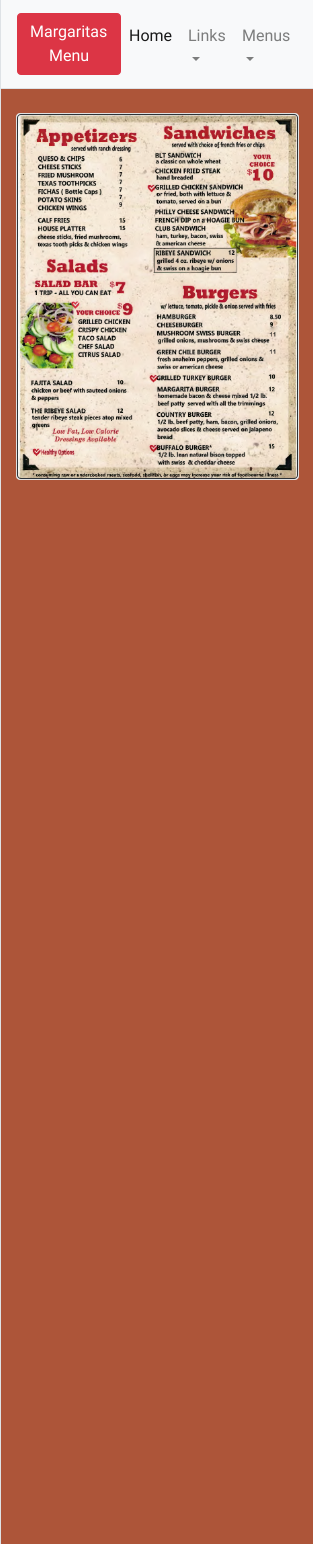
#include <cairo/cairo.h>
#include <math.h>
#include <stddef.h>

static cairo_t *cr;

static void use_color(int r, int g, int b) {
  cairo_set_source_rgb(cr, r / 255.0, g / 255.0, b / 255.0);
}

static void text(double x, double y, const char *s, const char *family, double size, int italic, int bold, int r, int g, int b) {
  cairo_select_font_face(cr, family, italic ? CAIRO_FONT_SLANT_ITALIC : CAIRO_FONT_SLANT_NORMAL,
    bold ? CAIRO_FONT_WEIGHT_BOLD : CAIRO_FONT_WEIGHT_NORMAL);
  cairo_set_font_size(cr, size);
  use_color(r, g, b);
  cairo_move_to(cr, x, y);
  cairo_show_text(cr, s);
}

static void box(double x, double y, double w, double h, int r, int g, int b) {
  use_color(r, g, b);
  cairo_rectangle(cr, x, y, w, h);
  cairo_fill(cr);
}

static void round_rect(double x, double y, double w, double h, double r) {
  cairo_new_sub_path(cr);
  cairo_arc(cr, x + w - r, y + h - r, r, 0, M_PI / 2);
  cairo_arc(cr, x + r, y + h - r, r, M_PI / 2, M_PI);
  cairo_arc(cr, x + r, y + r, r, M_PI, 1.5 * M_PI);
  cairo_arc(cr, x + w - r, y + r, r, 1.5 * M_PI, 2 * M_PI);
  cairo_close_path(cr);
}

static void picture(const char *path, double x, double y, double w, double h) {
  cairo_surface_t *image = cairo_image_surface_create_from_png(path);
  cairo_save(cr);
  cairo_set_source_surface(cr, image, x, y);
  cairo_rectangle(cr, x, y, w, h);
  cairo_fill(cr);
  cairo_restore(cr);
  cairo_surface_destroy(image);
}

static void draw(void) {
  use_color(222, 226, 230);
  cairo_paint(cr);
  box(1, 89, 312, 1455, 173, 85, 57);
  box(1, 0, 312, 88, 248, 249, 250);
  use_color(220, 53, 69);
  round_rect(17.5, 13.5, 103, 61, 3.5);
  cairo_fill_preserve(cr);
  cairo_set_line_width(cr, 1);
  cairo_stroke(cr);
  use_color(124, 125, 125);
  cairo_new_path(cr);
  cairo_move_to(cr, 192, 57);
  cairo_line_to(cr, 200, 57);
  cairo_line_to(cr, 196, 61);
  cairo_close_path(cr);
  cairo_fill(cr);
  cairo_new_path(cr);
  cairo_move_to(cr, 246, 57);
  cairo_line_to(cr, 254, 57);
  cairo_line_to(cr, 250, 61);
  cairo_close_path(cr);
  cairo_fill(cr);
  use_color(255, 255, 255);
  round_rect(16, 113, 283, 367, 4);
  cairo_fill(cr);
  round_rect(16.5, 113.5, 282, 366, 3.5);
  cairo_set_source_rgba(cr, 0, 0, 0, 0.12);
  cairo_stroke(cr);
  use_color(52, 58, 64);
  round_rect(17, 114, 281, 365, 4);
  cairo_fill(cr);
  round_rect(17.5, 114.5, 280, 364, 3.5);
  cairo_set_source_rgba(cr, 0, 0, 0, 0.12);
  cairo_stroke(cr);
  picture("img_01.png", 18, 115, 279, 363);
  text(30, 37, "Margaritas", "Roboto", 16, 0, 0, 255, 255, 255);
  text(49, 61, "Menu", "Roboto", 16, 0, 0, 255, 255, 255);
  text(129, 41, "Home", "Roboto", 16, 0, 0, 25, 25, 25);
  text(188, 41, "Links", "Roboto", 16, 0, 0, 124, 125, 125);
  text(242, 41, "Menus", "Roboto", 16, 0, 0, 124, 125, 125);
}

int main(void) {
  cairo_surface_t *surface = cairo_image_surface_create(CAIRO_FORMAT_RGB24, 313, 1544);
  cr = cairo_create(surface);
  cairo_font_options_t *options = cairo_font_options_create();
  cairo_font_options_set_hint_metrics(options, CAIRO_HINT_METRICS_OFF);
  cairo_font_options_set_hint_style(options, CAIRO_HINT_STYLE_NONE);
  cairo_set_font_options(cr, options);
  cairo_set_miter_limit(cr, 4);
  draw();
  cairo_surface_write_to_png(surface, "out.png");
  cairo_font_options_destroy(options);
  cairo_destroy(cr);
  cairo_surface_destroy(surface);
  return 0;
}
